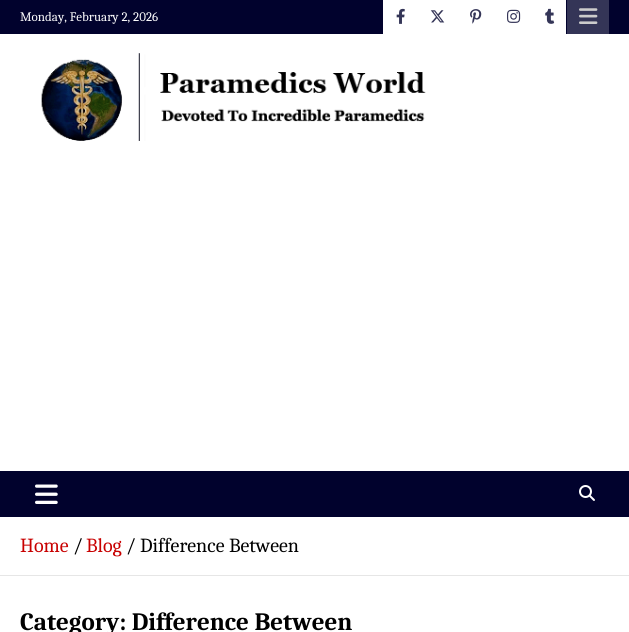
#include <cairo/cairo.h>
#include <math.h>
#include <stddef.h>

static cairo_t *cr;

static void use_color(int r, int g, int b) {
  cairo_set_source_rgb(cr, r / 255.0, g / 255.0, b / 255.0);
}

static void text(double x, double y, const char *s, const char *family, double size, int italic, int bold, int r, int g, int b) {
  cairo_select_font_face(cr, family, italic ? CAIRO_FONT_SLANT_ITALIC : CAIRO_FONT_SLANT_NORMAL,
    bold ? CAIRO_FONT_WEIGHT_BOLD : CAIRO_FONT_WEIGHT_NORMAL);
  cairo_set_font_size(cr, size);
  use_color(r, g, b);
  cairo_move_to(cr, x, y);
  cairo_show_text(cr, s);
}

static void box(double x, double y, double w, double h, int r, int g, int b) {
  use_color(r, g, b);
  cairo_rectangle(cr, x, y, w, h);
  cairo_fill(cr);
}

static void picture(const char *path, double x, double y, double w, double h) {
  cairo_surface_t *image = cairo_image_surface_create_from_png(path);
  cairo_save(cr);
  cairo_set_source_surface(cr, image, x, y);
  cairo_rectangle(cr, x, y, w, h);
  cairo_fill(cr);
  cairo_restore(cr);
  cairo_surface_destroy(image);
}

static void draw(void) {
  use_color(255, 255, 255);
  cairo_paint(cr);
  box(0, 0, 629, 34, 1, 2, 45);
  box(383, 0, 183, 34, 255, 255, 255);
  picture("img_01.png", 396, 8, 9, 16);
  picture("img_02.png", 430, 10, 15, 13);
  picture("img_03.png", 470, 9, 12, 15);
  picture("img_04.png", 507, 9, 14, 14);
  picture("img_05.png", 545, 8, 10, 16);
  box(567, 0, 42, 34, 52, 53, 87);
  picture("img_06.png", 579, 8, 19, 16);
  picture("img_07.png", 41, 53, 385, 88);
  box(0, 471, 629, 46, 1, 2, 45);
  picture("img_08.png", 35, 484, 23, 20);
  picture("img_09.png", 579, 485, 16, 16);
  box(0, 575, 629, 1, 230, 230, 230);
  text(20, 21, "Monday, February 2, 2026", "Caladea", 13, 0, 0, 255, 255, 255);
  text(20, 552, "Home", "Caladea", 20, 0, 0, 200, 0, 0);
  text(73, 552, "/", "Caladea", 20, 0, 0, 0, 0, 0);
  text(86, 552, "Blog", "Caladea", 20, 0, 0, 200, 0, 0);
  text(126, 552, "/", "Caladea", 20, 0, 0, 0, 0, 0);
  text(140, 552, "Difference Between", "Caladea", 20, 0, 0, 0, 0, 0);
  text(20, 630, "Category: Difference Between", "Caladea", 25, 0, 1, 0, 0, 0);
}

int main(void) {
  cairo_surface_t *surface = cairo_image_surface_create(CAIRO_FORMAT_RGB24, 629, 632);
  cr = cairo_create(surface);
  cairo_font_options_t *options = cairo_font_options_create();
  cairo_font_options_set_hint_metrics(options, CAIRO_HINT_METRICS_OFF);
  cairo_font_options_set_hint_style(options, CAIRO_HINT_STYLE_NONE);
  cairo_set_font_options(cr, options);
  cairo_set_miter_limit(cr, 4);
  draw();
  cairo_surface_write_to_png(surface, "out.png");
  cairo_font_options_destroy(options);
  cairo_destroy(cr);
  cairo_surface_destroy(surface);
  return 0;
}
